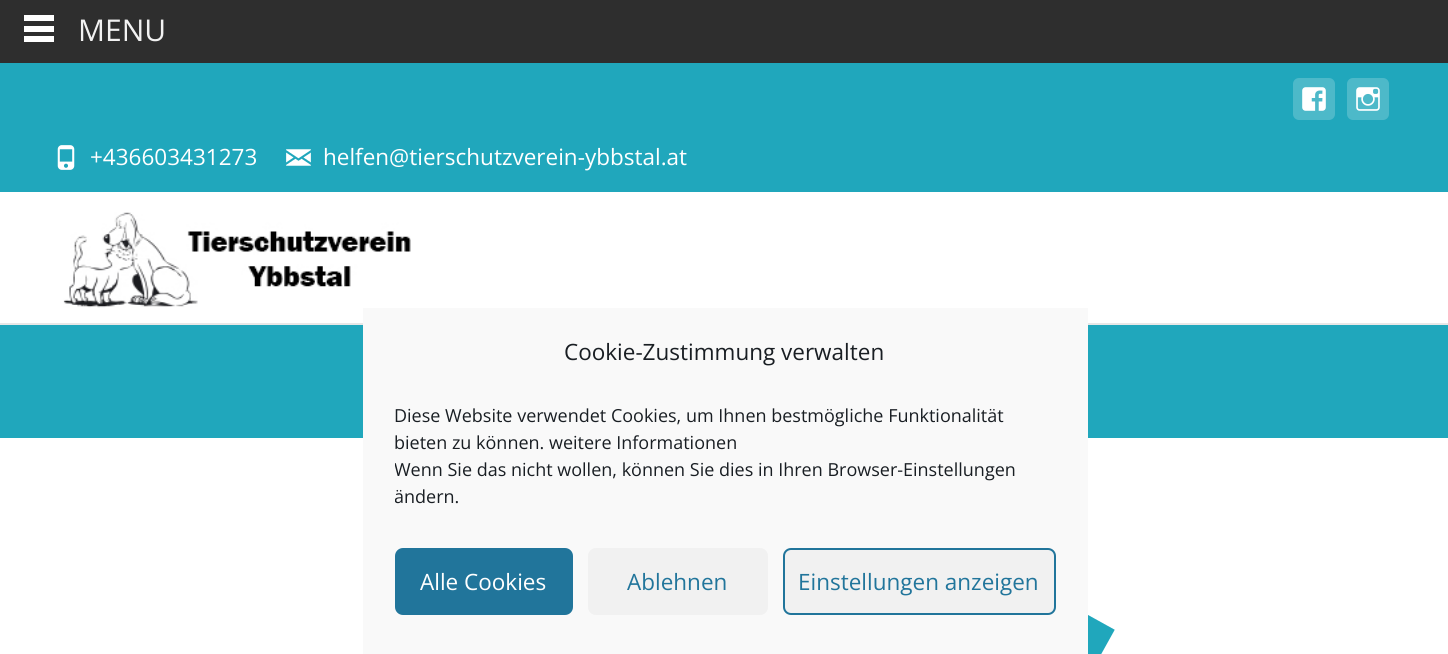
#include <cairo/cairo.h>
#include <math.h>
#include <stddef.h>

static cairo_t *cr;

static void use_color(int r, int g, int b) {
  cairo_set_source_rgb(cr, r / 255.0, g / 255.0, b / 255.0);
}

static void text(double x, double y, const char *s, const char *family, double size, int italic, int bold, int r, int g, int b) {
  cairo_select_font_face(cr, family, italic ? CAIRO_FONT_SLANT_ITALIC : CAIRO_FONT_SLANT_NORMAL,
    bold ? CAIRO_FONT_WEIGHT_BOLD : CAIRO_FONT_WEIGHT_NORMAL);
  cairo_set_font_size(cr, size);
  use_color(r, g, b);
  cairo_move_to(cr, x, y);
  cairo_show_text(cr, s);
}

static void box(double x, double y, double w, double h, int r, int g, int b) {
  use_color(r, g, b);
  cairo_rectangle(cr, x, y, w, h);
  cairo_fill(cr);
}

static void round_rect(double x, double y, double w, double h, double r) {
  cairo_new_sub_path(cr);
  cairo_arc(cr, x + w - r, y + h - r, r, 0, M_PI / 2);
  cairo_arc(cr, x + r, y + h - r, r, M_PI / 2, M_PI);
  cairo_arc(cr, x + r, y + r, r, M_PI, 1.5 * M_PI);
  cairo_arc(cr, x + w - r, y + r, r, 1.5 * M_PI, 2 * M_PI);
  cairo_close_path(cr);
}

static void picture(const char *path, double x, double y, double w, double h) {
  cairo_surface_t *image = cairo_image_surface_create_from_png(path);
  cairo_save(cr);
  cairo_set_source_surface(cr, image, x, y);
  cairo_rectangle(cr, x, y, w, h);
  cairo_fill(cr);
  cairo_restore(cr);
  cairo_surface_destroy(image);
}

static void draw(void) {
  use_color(255, 255, 255);
  cairo_paint(cr);
  box(0, 0, 1448, 63, 46, 46, 46);
  box(24, 15, 30, 6, 255, 255, 255);
  box(24, 26, 30, 6, 255, 255, 255);
  box(24, 36, 30, 6, 255, 255, 255);
  box(0, 63, 1448, 129, 32, 167, 188);
  use_color(77, 185, 201);
  round_rect(1293, 78, 42, 42, 6);
  cairo_fill(cr);
  picture("img_01.png", 1302, 87, 24, 24);
  round_rect(1347, 78, 42, 42, 6);
  cairo_fill(cr);
  picture("img_02.png", 1356, 87, 24, 24);
  picture("img_03.png", 57, 145, 18, 25);
  picture("img_04.png", 286, 149, 25, 17);
  box(0, 323, 1448, 2, 231, 231, 231);
  picture("img_05.png", 63, 212, 348, 96);
  box(0, 325, 1448, 113, 32, 167, 188);
  picture("img_06.png", 1088, 615, 27, 39);
  box(363, 308, 725, 346, 249, 249, 249);
  use_color(33, 117, 155);
  round_rect(396, 549, 176, 65, 7);
  cairo_fill_preserve(cr);
  cairo_stroke(cr);
  use_color(241, 241, 241);
  round_rect(588, 548, 180, 67, 8);
  cairo_fill(cr);
  round_rect(784, 549, 271, 65, 7);
  cairo_fill_preserve(cr);
  use_color(33, 117, 155);
  cairo_stroke(cr);
  text(78, 41, "MENU", "Open Sans", 30, 0, 0, 242, 242, 242);
  text(90, 165, "+436603431273", "Open Sans", 22.5, 0, 0, 255, 255, 255);
  text(323, 165, "helfen@tierschutzverein-ybbstal.at", "Open Sans", 22.5, 0, 0, 255, 255, 255);
  text(564, 360, "Cookie-Zustimmung verwalten", "Open Sans", 22.5, 0, 0, 25, 30, 35);
  text(394, 422, "Diese Website verwendet Cookies, um Ihnen bestmögliche Funktionalität", "Open Sans", 18, 0, 0, 25, 30, 35);
  text(394, 449, "bieten zu können. weitere Informationen", "Open Sans", 18, 0, 0, 25, 30, 35);
  cairo_save(cr);
  cairo_rectangle(cr, 395, 402, 661, 116);
  cairo_clip(cr);
  text(394, 476, "Wenn Sie das nicht wollen, können Sie dies in Ihren Browser-Einstellungen", "Open Sans", 18, 0, 0, 25, 30, 35);
  text(394, 503, "ändern.", "Open Sans", 18, 0, 0, 25, 30, 35);
  cairo_restore(cr);
  text(420, 590, "Alle Cookies", "Open Sans", 22.5, 0, 0, 255, 255, 255);
  text(627, 590, "Ablehnen", "Open Sans", 22.5, 0, 0, 33, 117, 155);
  text(798, 590, "Einstellungen anzeigen", "Open Sans", 22.5, 0, 0, 33, 117, 155);
}

int main(void) {
  cairo_surface_t *surface = cairo_image_surface_create(CAIRO_FORMAT_RGB24, 1448, 654);
  cr = cairo_create(surface);
  cairo_font_options_t *options = cairo_font_options_create();
  cairo_font_options_set_hint_metrics(options, CAIRO_HINT_METRICS_OFF);
  cairo_font_options_set_hint_style(options, CAIRO_HINT_STYLE_NONE);
  cairo_set_font_options(cr, options);
  cairo_set_miter_limit(cr, 4);
  draw();
  cairo_surface_write_to_png(surface, "out.png");
  cairo_font_options_destroy(options);
  cairo_destroy(cr);
  cairo_surface_destroy(surface);
  return 0;
}
